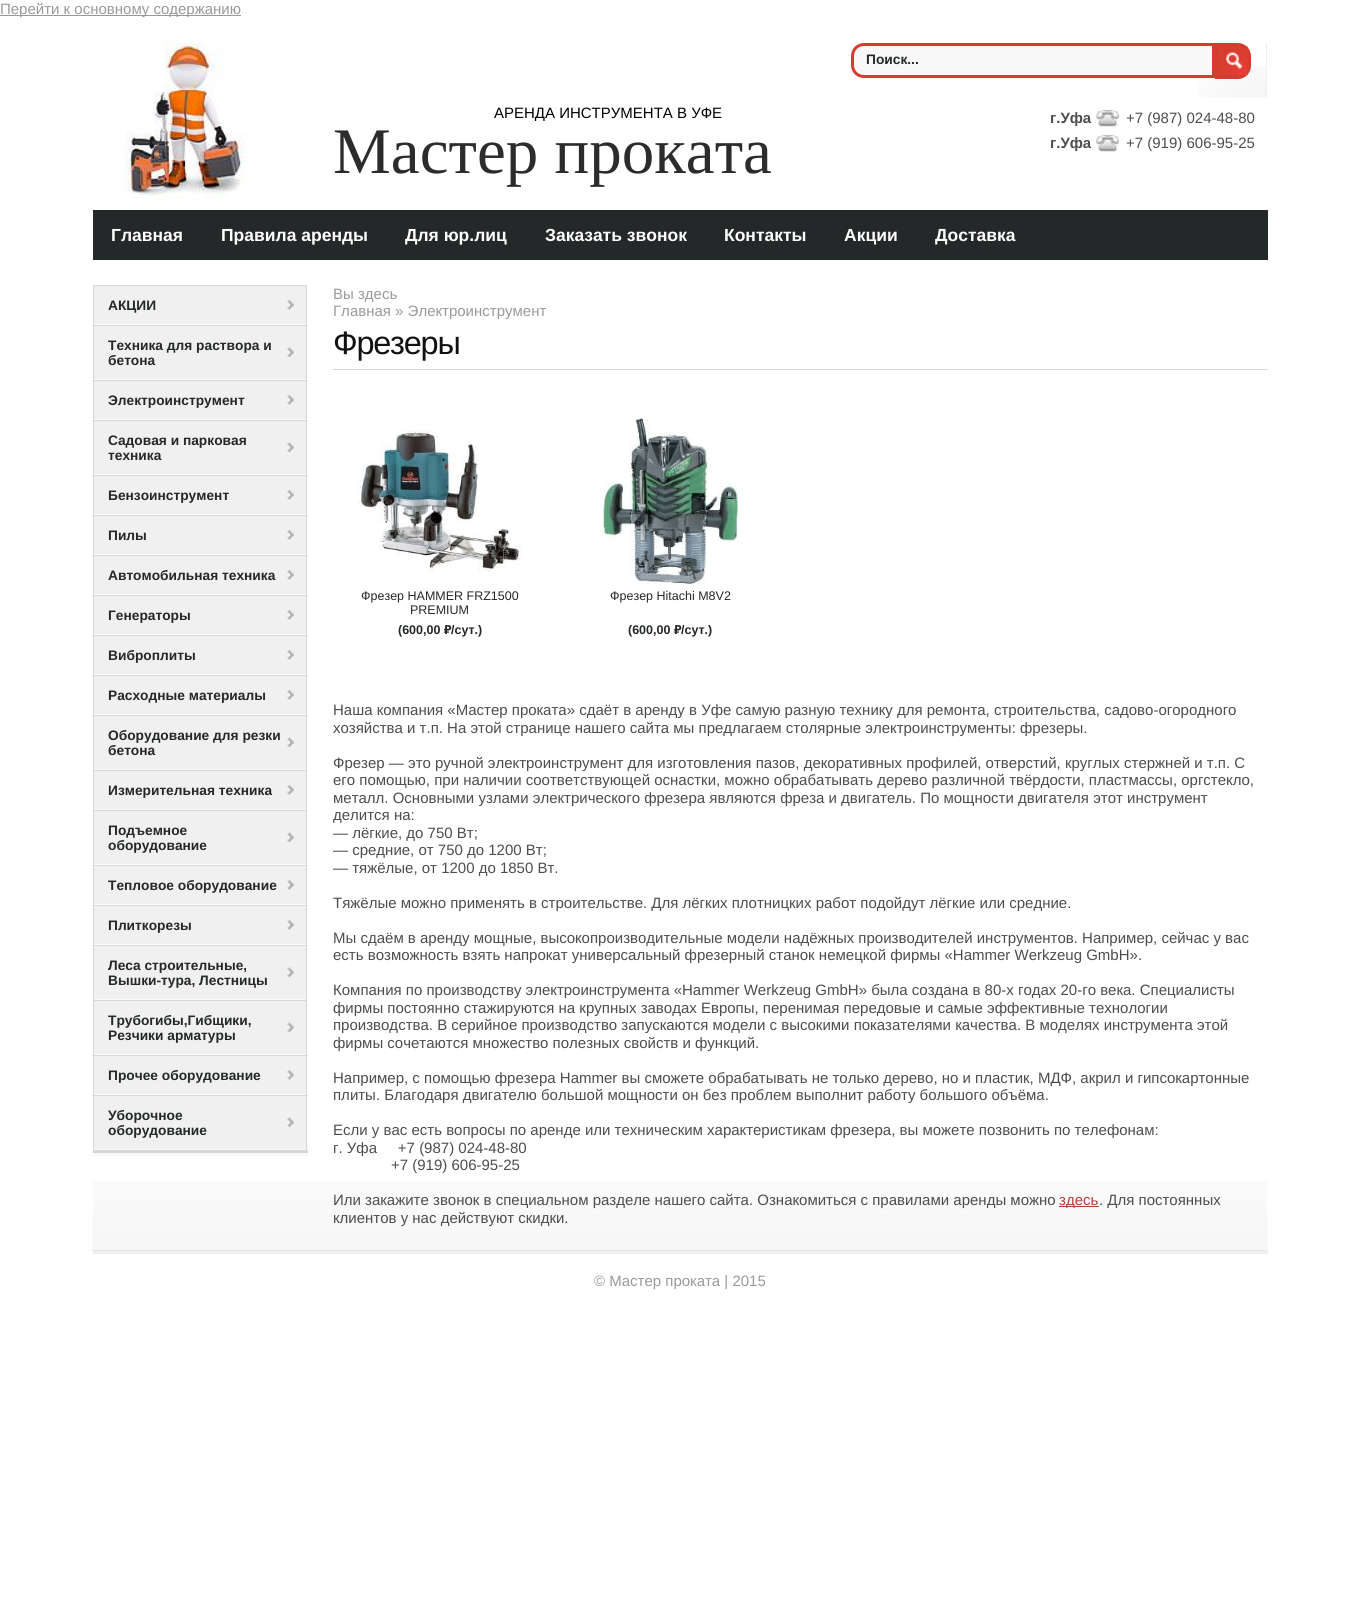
#include <cairo/cairo.h>
#include <math.h>
#include <stddef.h>

static cairo_t *cr;

static void use_color(int r, int g, int b) {
  cairo_set_source_rgb(cr, r / 255.0, g / 255.0, b / 255.0);
}

static void text(double x, double y, const char *s, const char *family, double size, int italic, int bold, int r, int g, int b) {
  cairo_select_font_face(cr, family, italic ? CAIRO_FONT_SLANT_ITALIC : CAIRO_FONT_SLANT_NORMAL,
    bold ? CAIRO_FONT_WEIGHT_BOLD : CAIRO_FONT_WEIGHT_NORMAL);
  cairo_set_font_size(cr, size);
  use_color(r, g, b);
  cairo_move_to(cr, x, y);
  cairo_show_text(cr, s);
}

static void spaced_text(double x, double y, const char *s, double letter, double word) {
  cairo_move_to(cr, x, y);
  while (*s) {
    char ch[5] = {0};
    int n = 0;
    do ch[n++] = *s++; while ((*s & 0xC0) == 0x80);
    cairo_show_text(cr, ch);
    cairo_rel_move_to(cr, letter + word * (*ch == ' '), 0);
  }
}

static void box(double x, double y, double w, double h, int r, int g, int b) {
  use_color(r, g, b);
  cairo_rectangle(cr, x, y, w, h);
  cairo_fill(cr);
}

static void picture(const char *path, double x, double y, double w, double h) {
  cairo_surface_t *image = cairo_image_surface_create_from_png(path);
  cairo_save(cr);
  cairo_set_source_surface(cr, image, x, y);
  cairo_rectangle(cr, x, y, w, h);
  cairo_fill(cr);
  cairo_restore(cr);
  cairo_surface_destroy(image);
}

static void draw(void) {
  use_color(255, 255, 255);
  cairo_paint(cr);
  box(0, 15, 241, 1, 153, 153, 153);
  picture("img_01.png", 124, 42, 122, 158);
  picture("img_02.png", 1198, 67, 68, 31);
  box(1266, 43, 1, 55, 239, 239, 239);
  use_color(248, 248, 248);
  cairo_new_path(cr);
  cairo_move_to(cr, 864, 44.5);
  cairo_line_to(cr, 1213.5, 44.5);
  cairo_line_to(cr, 1213.5, 76.5);
  cairo_line_to(cr, 864, 76.5);
  cairo_curve_to(cr, 857.5, 76.5, 852.5, 71.5, 852.5, 65);
  cairo_line_to(cr, 852.5, 56);
  cairo_curve_to(cr, 852.5, 49.5, 857.5, 44.5, 864, 44.5);
  cairo_close_path(cr);
  cairo_fill_preserve(cr);
  use_color(212, 61, 47);
  cairo_set_line_width(cr, 3);
  cairo_stroke(cr);
  use_color(212, 61, 46);
  cairo_new_path(cr);
  cairo_move_to(cr, 1215, 43);
  cairo_line_to(cr, 1238, 43);
  cairo_curve_to(cr, 1245, 43, 1251, 49, 1251, 56);
  cairo_line_to(cr, 1251, 66);
  cairo_curve_to(cr, 1251, 73, 1245, 79, 1238, 79);
  cairo_line_to(cr, 1215, 79);
  cairo_close_path(cr);
  cairo_fill(cr);
  picture("img_03.png", 1219, 46, 29, 29);
  picture("img_04.png", 1096, 109, 24, 18);
  picture("img_04.png", 1096, 134, 24, 18);
  box(93, 210, 1175, 50, 37, 40, 40);
  picture("img_05.png", 92, 1181, 1176, 71);
  box(93, 1251, 1175, 3, 240, 240, 240);
  box(93, 1153, 215, 3, 247, 247, 247);
  box(306, 285, 1, 868, 215, 215, 215);
  box(93, 1150, 215, 3, 215, 215, 215);
  box(93, 285, 1, 868, 215, 215, 215);
  box(94, 285, 212, 1, 215, 215, 215);
  box(94, 324, 212, 1, 251, 251, 251);
  box(94, 286, 212, 38, 240, 240, 240);
  picture("img_06.png", 287, 300, 7, 11);
  box(94, 325, 212, 1, 215, 215, 215);
  box(94, 379, 212, 1, 251, 251, 251);
  box(94, 326, 212, 53, 240, 240, 240);
  picture("img_07.png", 287, 347, 7, 12);
  box(94, 380, 212, 1, 215, 215, 215);
  box(94, 419, 212, 1, 251, 251, 251);
  box(94, 381, 212, 38, 240, 240, 240);
  picture("img_06.png", 287, 395, 7, 11);
  box(94, 420, 212, 1, 215, 215, 215);
  box(94, 474, 212, 1, 251, 251, 251);
  box(94, 421, 212, 53, 240, 240, 240);
  picture("img_07.png", 287, 442, 7, 12);
  box(94, 475, 212, 1, 215, 215, 215);
  box(94, 514, 212, 1, 251, 251, 251);
  box(94, 476, 212, 38, 240, 240, 240);
  picture("img_06.png", 287, 490, 7, 11);
  box(94, 515, 212, 1, 215, 215, 215);
  box(94, 554, 212, 1, 251, 251, 251);
  box(94, 516, 212, 38, 240, 240, 240);
  picture("img_06.png", 287, 530, 7, 11);
  box(94, 555, 212, 1, 215, 215, 215);
  box(94, 594, 212, 1, 251, 251, 251);
  box(94, 556, 212, 38, 240, 240, 240);
  picture("img_06.png", 287, 570, 7, 11);
  box(94, 595, 212, 1, 215, 215, 215);
  box(94, 634, 212, 1, 251, 251, 251);
  box(94, 596, 212, 38, 240, 240, 240);
  picture("img_06.png", 287, 610, 7, 11);
  box(94, 635, 212, 1, 215, 215, 215);
  box(94, 674, 212, 1, 251, 251, 251);
  box(94, 636, 212, 38, 240, 240, 240);
  picture("img_06.png", 287, 650, 7, 11);
  box(94, 675, 212, 1, 215, 215, 215);
  box(94, 714, 212, 1, 251, 251, 251);
  box(94, 676, 212, 38, 240, 240, 240);
  picture("img_06.png", 287, 690, 7, 11);
  box(94, 715, 212, 1, 215, 215, 215);
  box(94, 769, 212, 1, 251, 251, 251);
  box(94, 716, 212, 53, 240, 240, 240);
  picture("img_07.png", 287, 737, 7, 12);
  box(94, 770, 212, 1, 215, 215, 215);
  box(94, 809, 212, 1, 251, 251, 251);
  box(94, 771, 212, 38, 240, 240, 240);
  picture("img_06.png", 287, 785, 7, 11);
  box(94, 810, 212, 1, 215, 215, 215);
  box(94, 864, 212, 1, 251, 251, 251);
  box(94, 811, 212, 53, 240, 240, 240);
  picture("img_07.png", 287, 832, 7, 12);
  box(94, 865, 212, 1, 215, 215, 215);
  box(94, 904, 212, 1, 251, 251, 251);
  box(94, 866, 212, 38, 240, 240, 240);
  picture("img_06.png", 287, 880, 7, 11);
  box(94, 905, 212, 1, 215, 215, 215);
  box(94, 944, 212, 1, 251, 251, 251);
  box(94, 906, 212, 38, 240, 240, 240);
  picture("img_06.png", 287, 920, 7, 11);
  box(94, 945, 212, 1, 215, 215, 215);
  box(94, 999, 212, 1, 251, 251, 251);
  box(94, 946, 212, 53, 240, 240, 240);
  picture("img_07.png", 287, 967, 7, 12);
  box(94, 1000, 212, 1, 215, 215, 215);
  box(94, 1054, 212, 1, 251, 251, 251);
  box(94, 1001, 212, 53, 240, 240, 240);
  picture("img_08.png", 287, 1022, 7, 12);
  box(94, 1055, 212, 1, 215, 215, 215);
  box(94, 1094, 212, 1, 251, 251, 251);
  box(94, 1056, 212, 38, 240, 240, 240);
  picture("img_06.png", 287, 1070, 7, 11);
  box(94, 1095, 212, 1, 215, 215, 215);
  box(94, 1149, 212, 1, 251, 251, 251);
  box(94, 1096, 212, 53, 240, 240, 240);
  picture("img_07.png", 287, 1117, 7, 12);
  box(333, 369, 935, 1, 215, 215, 215);
  picture("img_09.png", 357, 430, 165, 142);
  picture("img_10.png", 603, 418, 135, 166);
  box(1059, 1206, 40, 1, 183, 64, 51);
  text(0, 14, "Перейти к основному содержанию", "Liberation Sans", 15, 0, 0, 153, 153, 153);
  text(866, 64, "Поиск...", "Liberation Sans", 13.75, 0, 1, 37, 40, 40);
  text(494, 118, "АРЕНДА ИНСТРУМЕНТА В УФЕ", "Liberation Sans", 15, 0, 0, 0, 0, 0);
  text(1050, 123, "г.Уфа", "Liberation Sans", 15, 0, 1, 77, 77, 77);
  text(1126, 123, "+7 (987) 024-48-80", "Liberation Sans", 15, 0, 0, 77, 77, 77);
  text(1050, 148, "г.Уфа", "Liberation Sans", 15, 0, 1, 77, 77, 77);
  text(1126, 148, "+7 (919) 606-95-25", "Liberation Sans", 15, 0, 0, 77, 77, 77);
  text(333, 173, "Мастер проката", "Liberation Serif", 65, 0, 0, 44, 44, 43);
  text(111, 241, "Главная", "Liberation Sans", 17.5, 0, 1, 255, 255, 255);
  text(221, 241, "Правила аренды", "Liberation Sans", 17.5, 0, 1, 255, 255, 255);
  text(405, 241, "Для юр.лиц", "Liberation Sans", 17.5, 0, 1, 255, 255, 255);
  text(545, 241, "Заказать звонок", "Liberation Sans", 17.5, 0, 1, 255, 255, 255);
  text(724, 241, "Контакты", "Liberation Sans", 17.5, 0, 1, 255, 255, 255);
  text(844, 241, "Акции", "Liberation Sans", 17.5, 0, 1, 255, 255, 255);
  text(935, 241, "Доставка", "Liberation Sans", 17.5, 0, 1, 255, 255, 255);
  text(108, 310, "АКЦИИ", "Liberation Sans", 13.75, 0, 1, 37, 40, 40);
  text(108, 350, "Техника для раствора и", "Liberation Sans", 13.75, 0, 1, 37, 40, 40);
  text(108, 365, "бетона", "Liberation Sans", 13.75, 0, 1, 37, 40, 40);
  text(108, 405, "Электроинструмент", "Liberation Sans", 13.75, 0, 1, 37, 40, 40);
  text(108, 445, "Садовая и парковая", "Liberation Sans", 13.75, 0, 1, 37, 40, 40);
  text(108, 460, "техника", "Liberation Sans", 13.75, 0, 1, 37, 40, 40);
  text(108, 500, "Бензоинструмент", "Liberation Sans", 13.75, 0, 1, 37, 40, 40);
  text(108, 540, "Пилы", "Liberation Sans", 13.75, 0, 1, 37, 40, 40);
  text(108, 580, "Автомобильная техника", "Liberation Sans", 13.75, 0, 1, 37, 40, 40);
  text(108, 620, "Генераторы", "Liberation Sans", 13.75, 0, 1, 37, 40, 40);
  text(108, 660, "Виброплиты", "Liberation Sans", 13.75, 0, 1, 37, 40, 40);
  text(108, 700, "Расходные материалы", "Liberation Sans", 13.75, 0, 1, 37, 40, 40);
  text(108, 740, "Оборудование для резки", "Liberation Sans", 13.75, 0, 1, 37, 40, 40);
  text(108, 755, "бетона", "Liberation Sans", 13.75, 0, 1, 37, 40, 40);
  text(108, 795, "Измерительная техника", "Liberation Sans", 13.75, 0, 1, 37, 40, 40);
  text(108, 835, "Подъемное", "Liberation Sans", 13.75, 0, 1, 37, 40, 40);
  text(108, 850, "оборудование", "Liberation Sans", 13.75, 0, 1, 37, 40, 40);
  text(108, 890, "Тепловое оборудование", "Liberation Sans", 13.75, 0, 1, 37, 40, 40);
  text(108, 930, "Плиткорезы", "Liberation Sans", 13.75, 0, 1, 37, 40, 40);
  text(108, 970, "Леса строительные,", "Liberation Sans", 13.75, 0, 1, 37, 40, 40);
  text(108, 985, "Вышки-тура, Лестницы", "Liberation Sans", 13.75, 0, 1, 37, 40, 40);
  text(108, 1025, "Трубогибы,Гибщики,", "Liberation Sans", 13.75, 0, 1, 37, 40, 40);
  text(108, 1040, "Резчики арматуры", "Liberation Sans", 13.75, 0, 1, 37, 40, 40);
  text(108, 1080, "Прочее оборудование", "Liberation Sans", 13.75, 0, 1, 37, 40, 40);
  text(108, 1120, "Уборочное", "Liberation Sans", 13.75, 0, 1, 37, 40, 40);
  text(108, 1135, "оборудование", "Liberation Sans", 13.75, 0, 1, 37, 40, 40);
  text(333, 299, "Вы здесь", "Liberation Sans", 15, 0, 0, 153, 153, 153);
  text(333, 316, "Главная » Электроинструмент", "Liberation Sans", 15, 0, 0, 153, 153, 153);
  cairo_set_font_size(cr, 32.5);
  use_color(17, 17, 17);
  spaced_text(333, 354, "Фрезеры", -1.25, 0);
  text(361, 600, "Фрезер HAMMER FRZ1500", "Liberation Sans", 12.5, 0, 0, 37, 40, 40);
  text(410, 614, "PREMIUM", "Liberation Sans", 12.5, 0, 0, 37, 40, 40);
  text(398, 634, "(600,00", "Liberation Sans", 12.5, 0, 1, 37, 40, 40);
  text(444, 634, "₽", "Noto Sans", 12.5, 0, 1, 37, 40, 40);
  text(451, 634, "/сут.)", "Liberation Sans", 12.5, 0, 1, 37, 40, 40);
  text(610, 600, "Фрезер Hitachi M8V2", "Liberation Sans", 12.5, 0, 0, 37, 40, 40);
  text(628, 634, "(600,00", "Liberation Sans", 12.5, 0, 1, 37, 40, 40);
  text(674, 634, "₽", "Noto Sans", 12.5, 0, 1, 37, 40, 40);
  text(681, 634, "/сут.)", "Liberation Sans", 12.5, 0, 1, 37, 40, 40);
  text(333, 715, "Наша компания «Мастер проката» сдаёт в аренду в Уфе самую разную технику для ремонта, строительства, садово-огородного", "Liberation Sans", 15, 0, 0, 77, 77, 77);
  text(333, 733, "хозяйства и т.п. На этой странице нашего сайта мы предлагаем столярные электроинструменты: фрезеры.", "Liberation Sans", 15, 0, 0, 77, 77, 77);
  text(333, 768, "Фрезер — это ручной электроинструмент для изготовления пазов, декоративных профилей, отверстий, круглых стержней и т.п. С", "Liberation Sans", 15, 0, 0, 77, 77, 77);
  text(333, 785, "его помощью, при наличии соответствующей оснастки, можно обрабатывать дерево различной твёрдости, пластмассы, оргстекло,", "Liberation Sans", 15, 0, 0, 77, 77, 77);
  text(333, 803, "металл. Основными узлами электрического фрезера являются фреза и двигатель. По мощности двигателя этот инструмент", "Liberation Sans", 15, 0, 0, 77, 77, 77);
  text(333, 820, "делится на:", "Liberation Sans", 15, 0, 0, 77, 77, 77);
  text(333, 838, "— лёгкие, до 750 Вт;", "Liberation Sans", 15, 0, 0, 77, 77, 77);
  text(333, 855, "— средние, от 750 до 1200 Вт;", "Liberation Sans", 15, 0, 0, 77, 77, 77);
  text(333, 873, "— тяжёлые, от 1200 до 1850 Вт.", "Liberation Sans", 15, 0, 0, 77, 77, 77);
  text(333, 908, "Тяжёлые можно применять в строительстве. Для лёгких плотницких работ подойдут лёгкие или средние.", "Liberation Sans", 15, 0, 0, 77, 77, 77);
  text(333, 943, "Мы сдаём в аренду мощные, высокопроизводительные модели надёжных производителей инструментов. Например, сейчас у вас", "Liberation Sans", 15, 0, 0, 77, 77, 77);
  text(333, 960, "есть возможность взять напрокат универсальный фрезерный станок немецкой фирмы «Hammer Werkzeug GmbH».", "Liberation Sans", 15, 0, 0, 77, 77, 77);
  text(333, 995, "Компания по производству электроинструмента «Hammer Werkzeug GmbH» была создана в 80-х годах 20-го века. Специалисты", "Liberation Sans", 15, 0, 0, 77, 77, 77);
  text(333, 1013, "фирмы постоянно стажируются на крупных заводах Европы, перенимая передовые и самые эффективные технологии", "Liberation Sans", 15, 0, 0, 77, 77, 77);
  text(333, 1030, "производства. В серийное производство запускаются модели с высокими показателями качества. В моделях инструмента этой", "Liberation Sans", 15, 0, 0, 77, 77, 77);
  text(333, 1048, "фирмы сочетаются множество полезных свойств и функций.", "Liberation Sans", 15, 0, 0, 77, 77, 77);
  text(333, 1083, "Например, с помощью фрезера Hammer вы сможете обрабатывать не только дерево, но и пластик, МДФ, акрил и гипсокартонные", "Liberation Sans", 15, 0, 0, 77, 77, 77);
  text(333, 1100, "плиты. Благодаря двигателю большой мощности он без проблем выполнит работу большого объёма.", "Liberation Sans", 15, 0, 0, 77, 77, 77);
  text(333, 1135, "Если у вас есть вопросы по аренде или техническим характеристикам фрезера, вы можете позвонить по телефонам:", "Liberation Sans", 15, 0, 0, 77, 77, 77);
  text(333, 1153, "г. Уфа     +7 (987) 024-48-80", "Liberation Sans", 15, 0, 0, 77, 77, 77);
  text(391, 1170, "+7 (919) 606-95-25", "Liberation Sans", 15, 0, 0, 77, 77, 77);
  text(333, 1205, "Или закажите звонок в специальном разделе нашего сайта. Ознакомиться с правилами аренды можно", "Liberation Sans", 15, 0, 0, 77, 77, 77);
  text(1059, 1205, "здесь", "Liberation Sans", 15, 0, 0, 183, 64, 51);
  text(1099, 1205, ". Для постоянных", "Liberation Sans", 15, 0, 0, 77, 77, 77);
  text(333, 1223, "клиентов у нас действуют скидки.", "Liberation Sans", 15, 0, 0, 77, 77, 77);
  text(594, 1286, "© Мастер проката | 2015", "Liberation Sans", 15, 0, 0, 153, 153, 153);
}

int main(void) {
  cairo_surface_t *surface = cairo_image_surface_create(CAIRO_FORMAT_RGB24, 1359, 1601);
  cr = cairo_create(surface);
  cairo_font_options_t *options = cairo_font_options_create();
  cairo_font_options_set_hint_metrics(options, CAIRO_HINT_METRICS_OFF);
  cairo_font_options_set_hint_style(options, CAIRO_HINT_STYLE_NONE);
  cairo_set_font_options(cr, options);
  cairo_set_miter_limit(cr, 4);
  draw();
  cairo_surface_write_to_png(surface, "out.png");
  cairo_font_options_destroy(options);
  cairo_destroy(cr);
  cairo_surface_destroy(surface);
  return 0;
}
